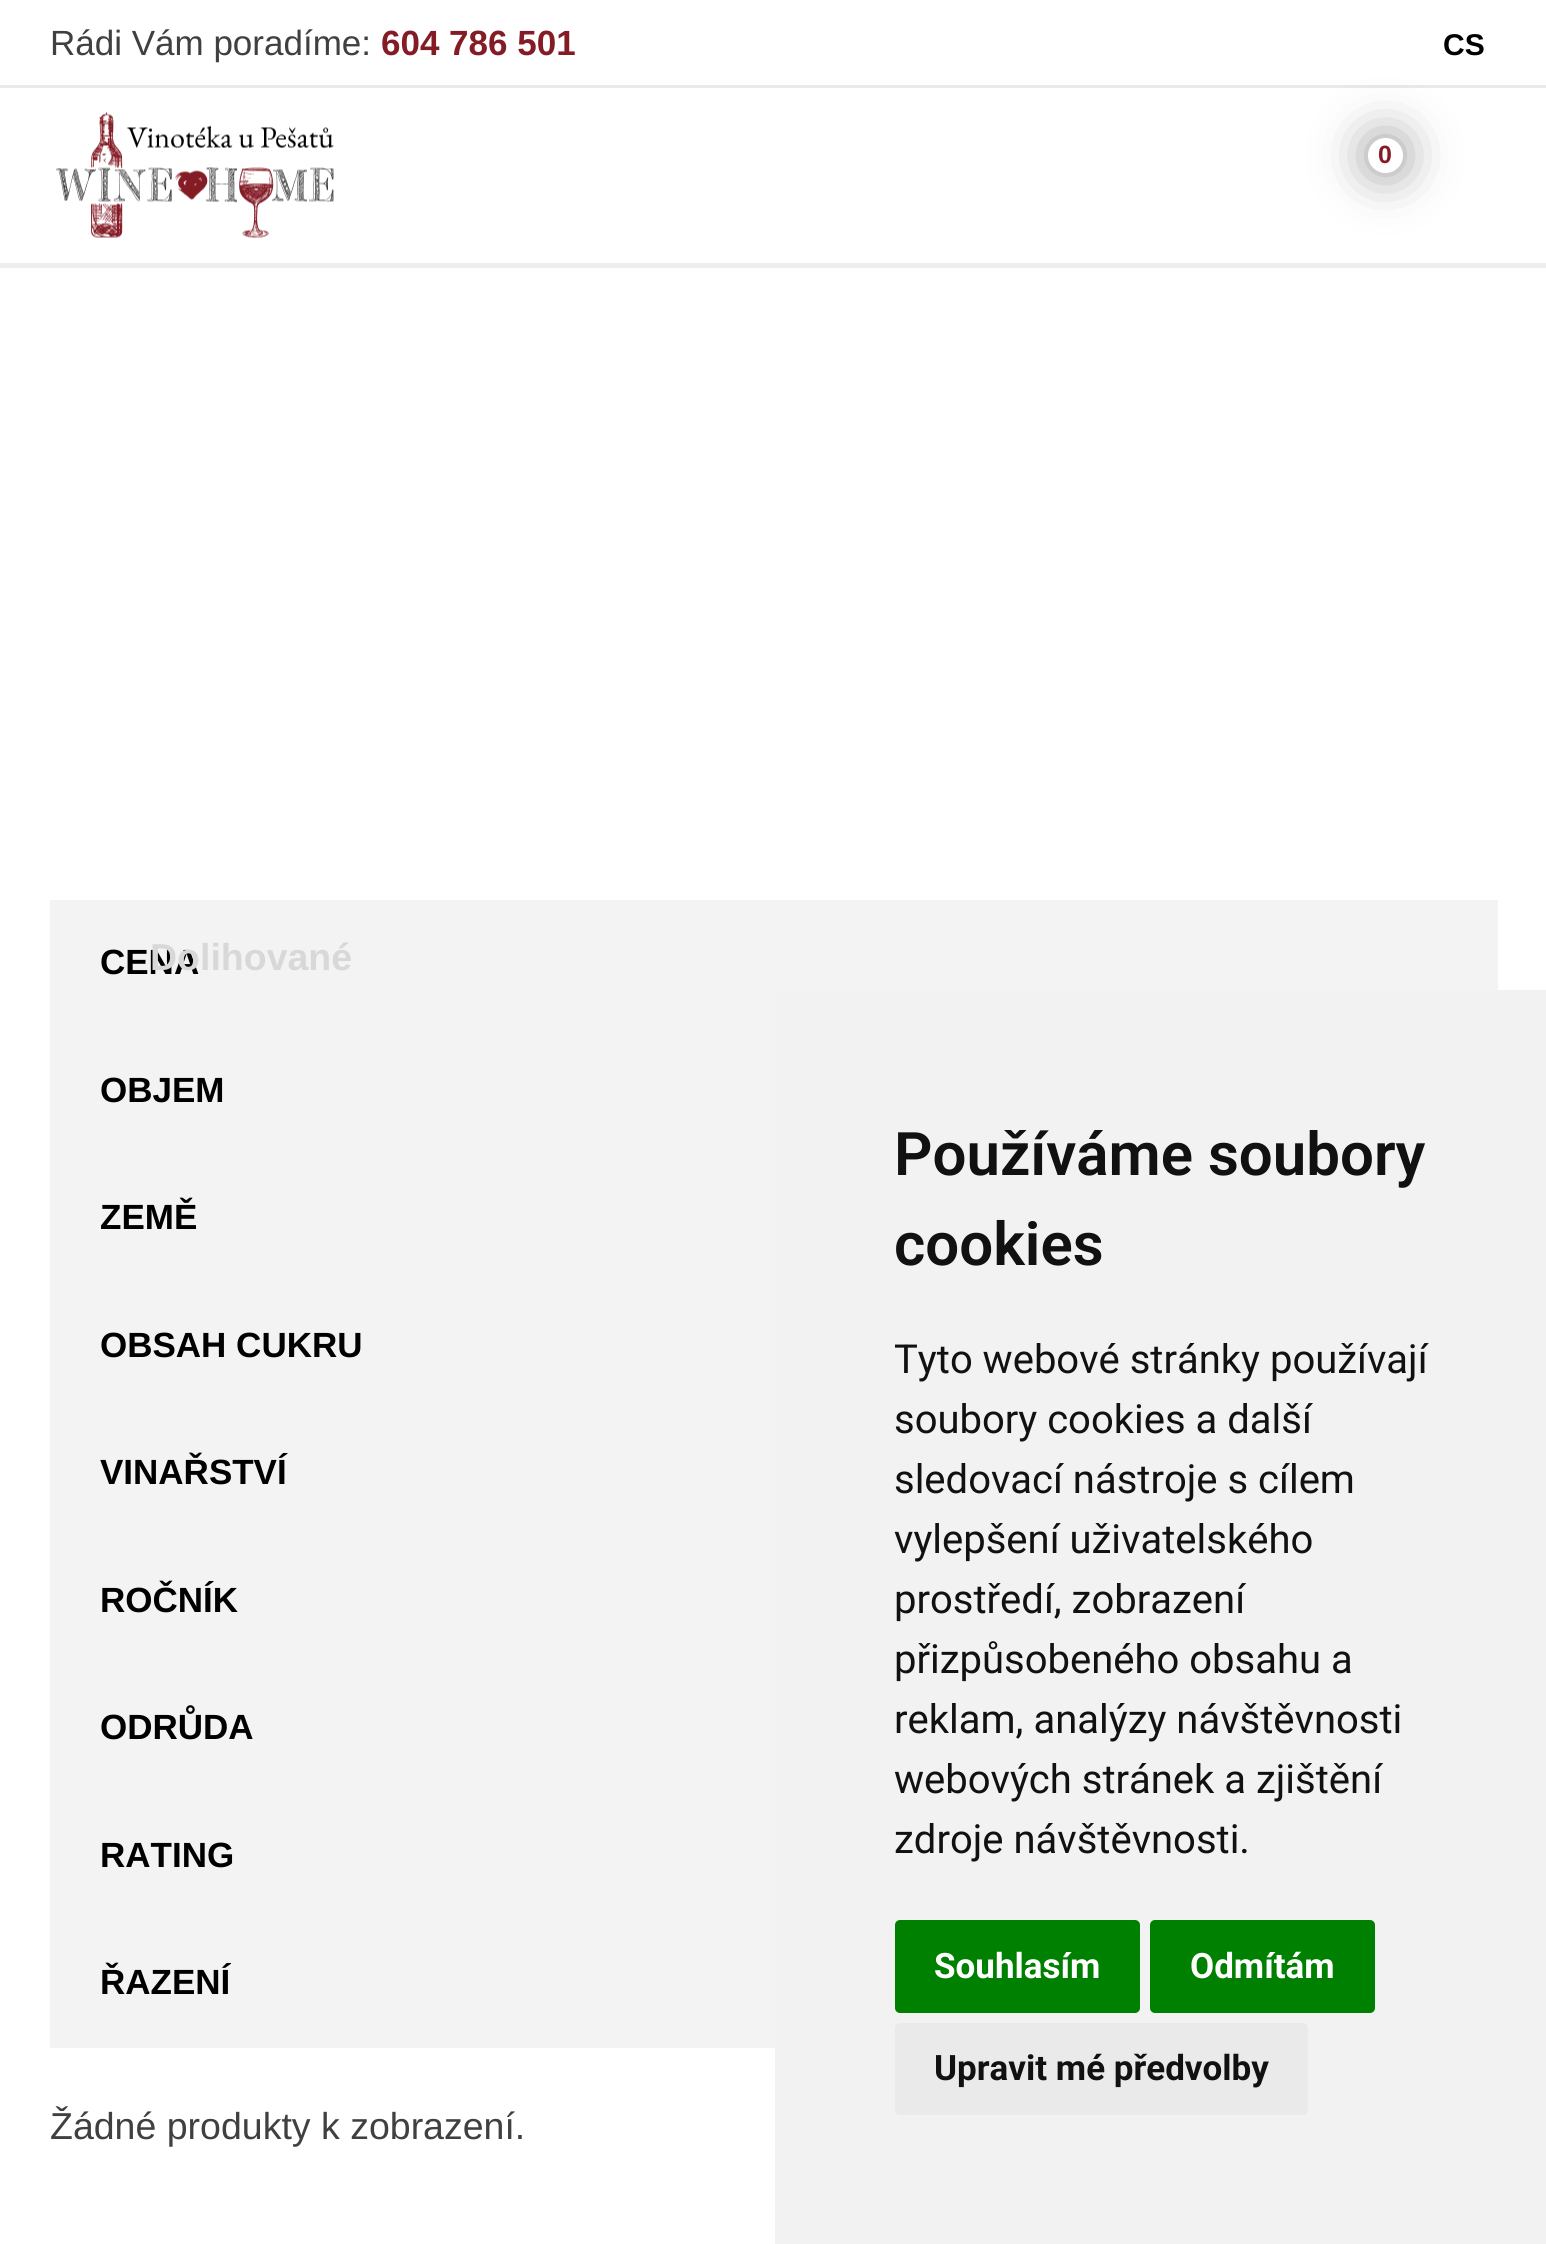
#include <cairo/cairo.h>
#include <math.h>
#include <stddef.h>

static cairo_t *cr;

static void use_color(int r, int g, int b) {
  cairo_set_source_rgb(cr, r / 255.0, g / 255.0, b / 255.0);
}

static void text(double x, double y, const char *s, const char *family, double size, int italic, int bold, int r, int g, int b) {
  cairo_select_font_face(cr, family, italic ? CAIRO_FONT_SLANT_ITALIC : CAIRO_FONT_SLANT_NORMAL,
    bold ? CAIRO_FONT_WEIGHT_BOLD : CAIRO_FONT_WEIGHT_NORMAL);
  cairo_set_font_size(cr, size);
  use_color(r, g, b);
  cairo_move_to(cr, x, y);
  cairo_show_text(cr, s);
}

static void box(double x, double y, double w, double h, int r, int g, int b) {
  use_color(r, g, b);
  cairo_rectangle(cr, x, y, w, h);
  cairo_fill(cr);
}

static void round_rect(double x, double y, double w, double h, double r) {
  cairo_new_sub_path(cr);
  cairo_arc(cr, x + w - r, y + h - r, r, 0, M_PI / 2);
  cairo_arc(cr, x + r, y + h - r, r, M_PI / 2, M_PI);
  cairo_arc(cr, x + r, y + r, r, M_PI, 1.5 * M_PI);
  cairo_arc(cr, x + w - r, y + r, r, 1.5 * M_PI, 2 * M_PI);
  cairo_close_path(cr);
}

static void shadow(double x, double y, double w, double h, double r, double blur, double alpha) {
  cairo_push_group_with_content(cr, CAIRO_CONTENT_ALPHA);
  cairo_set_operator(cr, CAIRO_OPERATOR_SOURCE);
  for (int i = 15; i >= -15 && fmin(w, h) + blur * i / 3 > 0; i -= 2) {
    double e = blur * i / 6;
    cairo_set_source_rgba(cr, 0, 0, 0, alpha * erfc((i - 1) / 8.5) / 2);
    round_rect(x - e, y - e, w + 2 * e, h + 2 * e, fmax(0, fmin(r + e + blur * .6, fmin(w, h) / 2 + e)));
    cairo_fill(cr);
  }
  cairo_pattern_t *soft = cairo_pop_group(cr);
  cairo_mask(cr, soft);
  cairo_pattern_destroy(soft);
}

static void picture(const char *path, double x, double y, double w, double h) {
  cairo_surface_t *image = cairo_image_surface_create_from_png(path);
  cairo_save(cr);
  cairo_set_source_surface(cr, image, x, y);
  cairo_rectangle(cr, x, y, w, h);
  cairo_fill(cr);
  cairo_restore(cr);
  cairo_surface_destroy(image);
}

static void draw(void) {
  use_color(255, 255, 255);
  cairo_paint(cr);
  box(0, 85, 1546, 3, 233, 233, 233);
  box(0, 263, 1546, 5, 238, 238, 238);
  picture("img_01.png", 56, 112, 278, 126);
  use_color(0, 0, 0);
  shadow(1368, 138, 35, 35, 17.5, 25, 0.4);
  use_color(255, 255, 255);
  cairo_arc(cr, 1385.5, 155.5, 17.5, 0, 2 * M_PI);
  cairo_fill(cr);
  box(50, 900, 1448, 1148, 243, 243, 243);
  box(775, 990, 771, 1254, 242, 242, 242);
  use_color(0, 128, 0);
  round_rect(895, 1920, 245, 93, 5);
  cairo_fill(cr);
  round_rect(1150, 1920, 225, 93, 5);
  cairo_fill(cr);
  use_color(234, 234, 234);
  round_rect(895, 2023, 413, 92, 5);
  cairo_fill(cr);
  text(50, 55, "Rádi Vám poradíme:", "Liberation Sans", 35, 0, 0, 64, 64, 64);
  text(381, 55, "604 786 501", "Liberation Sans", 35, 0, 1, 132, 28, 38);
  text(1443, 55, "CS", "Liberation Sans", 30, 0, 1, 0, 0, 0);
  text(1378, 163, "0", "Liberation Sans", 25, 0, 1, 132, 28, 38);
  text(100, 974, "CENA", "Liberation Sans", 35, 0, 1, 0, 0, 0);
  text(150, 970, "Dolihované", "Liberation Sans", 37.5, 0, 1, 216, 216, 216);
  text(100, 1102, "OBJEM", "Liberation Sans", 35, 0, 1, 0, 0, 0);
  text(100, 1229, "ZEMĚ", "Liberation Sans", 35, 0, 1, 0, 0, 0);
  text(100, 1357, "OBSAH CUKRU", "Liberation Sans", 35, 0, 1, 0, 0, 0);
  text(100, 1484, "VINAŘSTVÍ", "Liberation Sans", 35, 0, 1, 0, 0, 0);
  text(100, 1612, "ROČNÍK", "Liberation Sans", 35, 0, 1, 0, 0, 0);
  text(100, 1739, "ODRŮDA", "Liberation Sans", 35, 0, 1, 0, 0, 0);
  text(100, 1867, "RATING", "Liberation Sans", 35, 0, 1, 0, 0, 0);
  text(100, 1994, "ŘAZENÍ", "Liberation Sans", 35, 0, 1, 0, 0, 0);
  text(50, 2139, "Žádné produkty k zobrazení.", "Liberation Sans", 37.5, 0, 0, 64, 64, 64);
  text(894, 1175, "Používáme soubory", "Roboto SemiBold", 60, 0, 0, 17, 17, 17);
  text(894, 1265, "cookies", "Roboto SemiBold", 60, 0, 0, 17, 17, 17);
  text(894, 1373, "Tyto webové stránky používají", "Roboto", 40, 0, 0, 17, 17, 17);
  text(894, 1433, "soubory cookies a další", "Roboto", 40, 0, 0, 17, 17, 17);
  text(894, 1493, "sledovací nástroje s cílem", "Roboto", 40, 0, 0, 17, 17, 17);
  text(894, 1553, "vylepšení uživatelského", "Roboto", 40, 0, 0, 17, 17, 17);
  text(894, 1613, "prostředí, zobrazení", "Roboto", 40, 0, 0, 17, 17, 17);
  text(894, 1673, "přizpůsobeného obsahu a", "Roboto", 40, 0, 0, 17, 17, 17);
  text(894, 1733, "reklam, analýzy návštěvnosti", "Roboto", 40, 0, 0, 17, 17, 17);
  text(894, 1793, "webových stránek a zjištění", "Roboto", 40, 0, 0, 17, 17, 17);
  text(894, 1853, "zdroje návštěvnosti.", "Roboto", 40, 0, 0, 17, 17, 17);
  text(934, 1978, "Souhlasím", "Roboto", 35, 0, 1, 255, 255, 255);
  text(1190, 1978, "Odmítám", "Roboto", 35, 0, 1, 255, 255, 255);
  text(934, 2080, "Upravit mé předvolby", "Roboto", 35, 0, 1, 17, 17, 17);
}

int main(void) {
  cairo_surface_t *surface = cairo_image_surface_create(CAIRO_FORMAT_RGB24, 1546, 2244);
  cr = cairo_create(surface);
  cairo_font_options_t *options = cairo_font_options_create();
  cairo_font_options_set_hint_metrics(options, CAIRO_HINT_METRICS_OFF);
  cairo_font_options_set_hint_style(options, CAIRO_HINT_STYLE_NONE);
  cairo_set_font_options(cr, options);
  cairo_set_miter_limit(cr, 4);
  draw();
  cairo_surface_write_to_png(surface, "out.png");
  cairo_font_options_destroy(options);
  cairo_destroy(cr);
  cairo_surface_destroy(surface);
  return 0;
}
